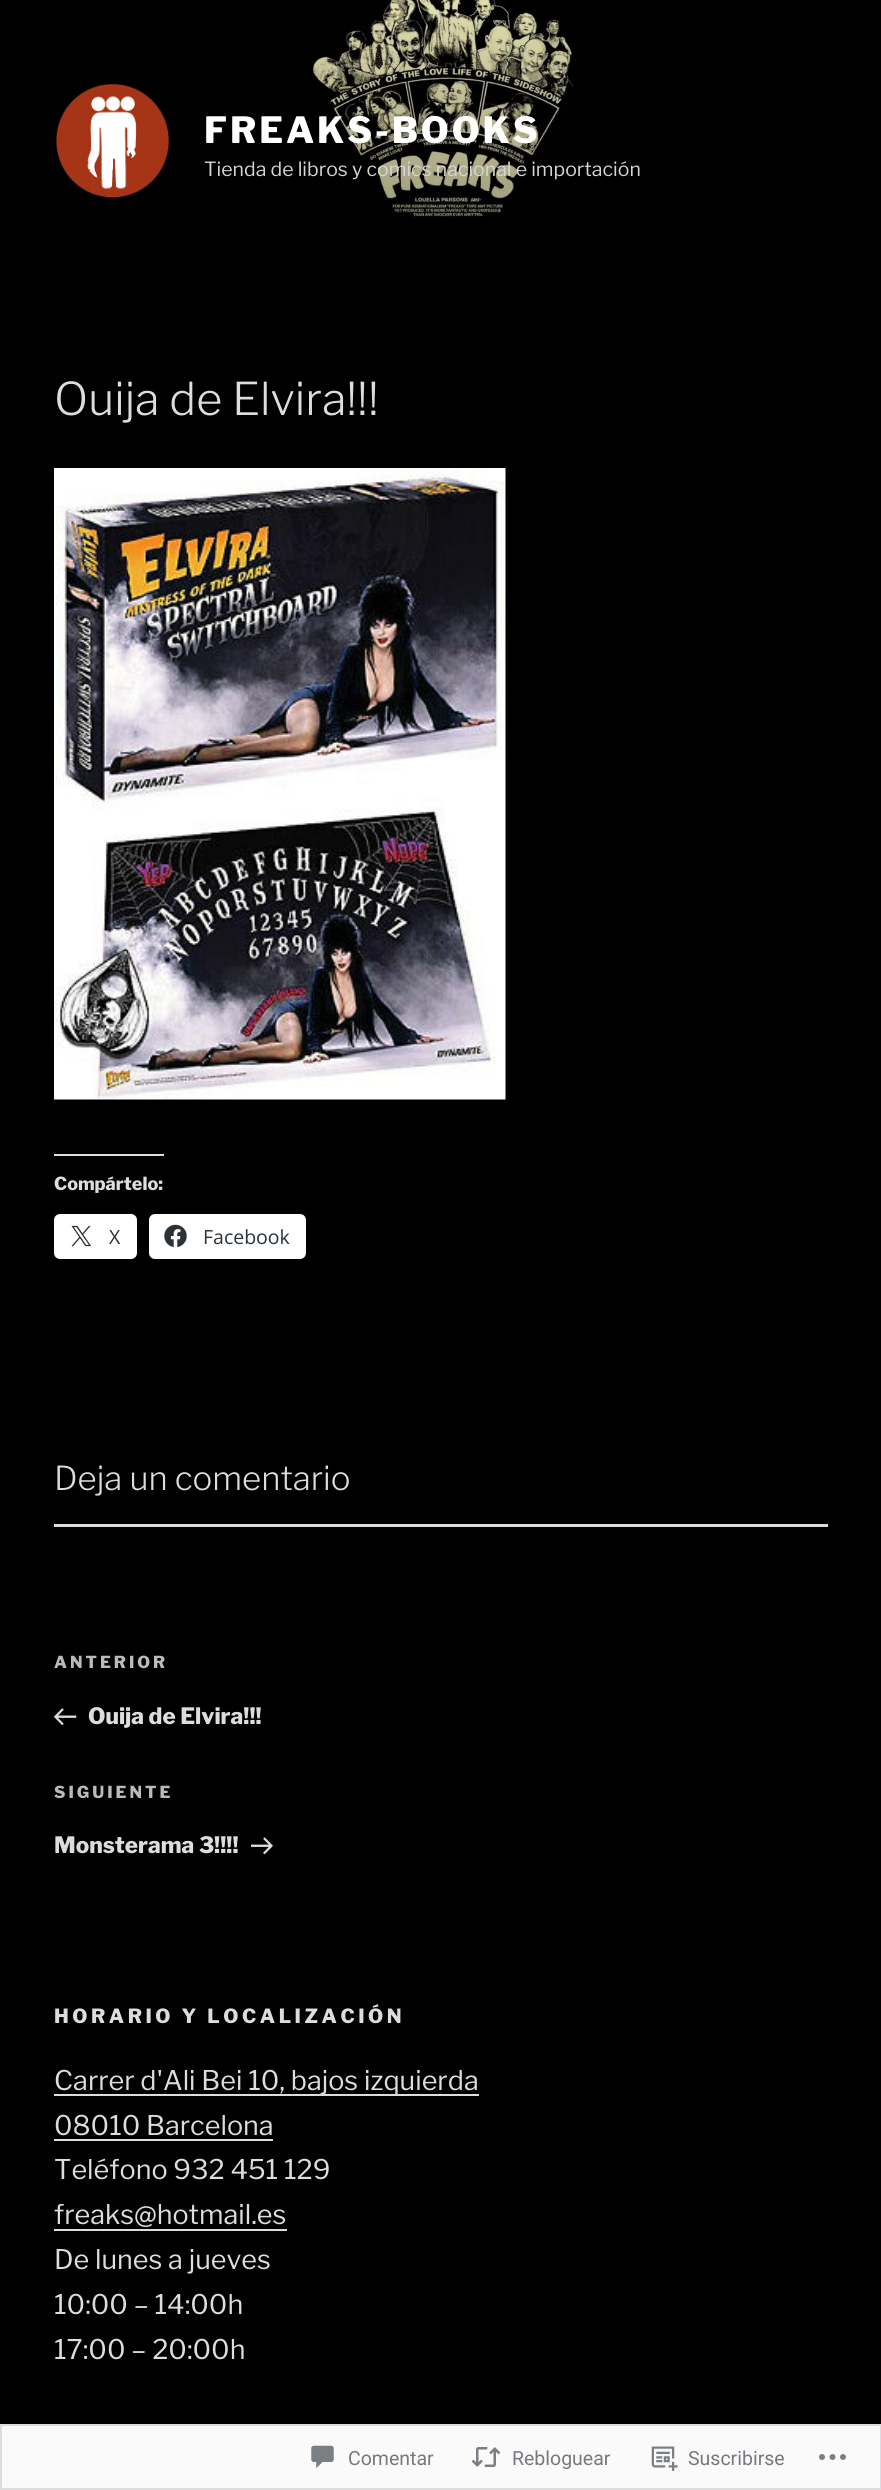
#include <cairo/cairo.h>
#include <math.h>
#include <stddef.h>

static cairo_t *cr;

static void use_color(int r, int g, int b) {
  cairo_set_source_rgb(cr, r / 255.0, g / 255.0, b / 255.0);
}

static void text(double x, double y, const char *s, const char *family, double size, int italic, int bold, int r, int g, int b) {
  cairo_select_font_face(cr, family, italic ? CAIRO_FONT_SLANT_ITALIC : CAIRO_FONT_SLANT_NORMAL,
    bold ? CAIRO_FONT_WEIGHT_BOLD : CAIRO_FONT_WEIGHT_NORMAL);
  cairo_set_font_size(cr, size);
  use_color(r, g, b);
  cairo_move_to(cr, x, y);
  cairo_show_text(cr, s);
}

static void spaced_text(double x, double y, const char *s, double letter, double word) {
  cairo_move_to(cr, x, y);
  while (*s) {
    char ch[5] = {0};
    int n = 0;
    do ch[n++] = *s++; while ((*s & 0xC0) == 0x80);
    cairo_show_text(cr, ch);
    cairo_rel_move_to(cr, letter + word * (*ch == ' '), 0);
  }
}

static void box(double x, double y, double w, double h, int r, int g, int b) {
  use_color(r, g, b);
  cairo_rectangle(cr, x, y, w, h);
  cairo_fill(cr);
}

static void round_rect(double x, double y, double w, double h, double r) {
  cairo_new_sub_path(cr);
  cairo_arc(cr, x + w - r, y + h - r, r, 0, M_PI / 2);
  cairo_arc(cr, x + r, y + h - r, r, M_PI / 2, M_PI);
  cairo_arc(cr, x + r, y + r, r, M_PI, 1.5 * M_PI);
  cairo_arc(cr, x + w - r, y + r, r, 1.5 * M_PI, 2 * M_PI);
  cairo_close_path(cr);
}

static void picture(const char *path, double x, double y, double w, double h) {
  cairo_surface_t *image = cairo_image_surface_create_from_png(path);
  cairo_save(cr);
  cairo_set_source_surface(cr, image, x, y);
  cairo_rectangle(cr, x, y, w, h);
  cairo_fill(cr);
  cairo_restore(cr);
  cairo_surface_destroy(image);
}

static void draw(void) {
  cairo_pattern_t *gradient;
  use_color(0, 0, 0);
  cairo_paint(cr);
  box(0, 2424, 881, 66, 250, 250, 250);
  picture("img_01.png", 312, 0, 262, 218);
  gradient = cairo_pattern_create_linear(441, 0, 441, 296);
  cairo_pattern_add_color_stop_rgba(gradient, 0, 0, 0, 0, 0);
  cairo_pattern_add_color_stop_rgba(gradient, 0.75, 0, 0, 0, 0.3);
  cairo_pattern_add_color_stop_rgba(gradient, 1, 0, 0, 0, 0.3);
  cairo_set_source(cr, gradient);
  cairo_pattern_destroy(gradient);
  cairo_rectangle(cr, 313, 16, 260, 202);
  cairo_fill(cr);
  picture("img_02.png", 56, 83, 114, 115);
  picture("img_03.png", 54, 468, 452, 632);
  box(54, 1154, 110, 2, 220, 220, 222);
  use_color(255, 255, 255);
  round_rect(54, 1214, 83, 45, 6);
  cairo_fill(cr);
  picture("img_04.png", 71, 1225, 21, 22);
  round_rect(149, 1214, 157, 45, 6);
  cairo_fill(cr);
  picture("img_05.png", 164, 1224, 23, 24);
  box(54, 1524, 774, 3, 220, 220, 222);
  picture("img_06.png", 54, 1708, 23, 18);
  picture("img_07.png", 251, 1837, 22, 18);
  box(54, 2094, 425, 2, 221, 221, 221);
  box(54, 2139, 219, 2, 221, 221, 221);
  box(54, 2229, 233, 2, 221, 221, 221);
  cairo_rectangle(cr, 1, 2425, 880, 64);
  cairo_set_source_rgba(cr, 0.863, 0.863, 0.871, 0.98);
  cairo_stroke(cr);
  picture("img_08.png", 311, 2445, 23, 24);
  picture("img_09.png", 471, 2447, 30, 20);
  picture("img_10.png", 651, 2446, 27, 25);
  picture("img_11.png", 819, 2454, 27, 6);
  cairo_select_font_face(cr, "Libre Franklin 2 Thin", CAIRO_FONT_SLANT_NORMAL, CAIRO_FONT_WEIGHT_NORMAL);
  cairo_set_font_size(cr, 36);
  use_color(255, 255, 255);
  spaced_text(204, 143, "FREAKS-BOOKS", 2.9, 0);
  text(204, 176, "Tienda de libros y comics nacional e importación", "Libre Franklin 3 Thin", 19.5, 0, 0, 213, 213, 211);
  text(54, 415, "Ouija de Elvira!!!", "Libre Franklin Thin", 45, 0, 0, 221, 221, 221);
  text(54, 1190, "Compártelo:", "Libre Franklin 2 Thin", 18, 0, 0, 221, 221, 221);
  text(109, 1244, "X", "Open Sans", 19.5, 0, 0, 44, 51, 56);
  text(203, 1244, "Facebook", "Open Sans", 19.5, 0, 0, 44, 51, 56);
  text(54, 1490, "Deja un comentario", "Libre Franklin Thin", 33, 0, 0, 221, 221, 221);
  cairo_select_font_face(cr, "Libre Franklin 2 Thin", CAIRO_FONT_SLANT_NORMAL, CAIRO_FONT_WEIGHT_NORMAL);
  cairo_set_font_size(cr, 16.5);
  use_color(187, 187, 187);
  spaced_text(54, 1668, "ANTERIOR", 3, 0);
  text(88, 1724, "Ouija de Elvira!!!", "Libre Franklin 2 Thin", 22.5, 0, 0, 221, 221, 221);
  cairo_set_font_size(cr, 16.5);
  use_color(187, 187, 187);
  spaced_text(54, 1798, "SIGUIENTE", 3, 0);
  text(54, 1853, "Monsterama 3!!!!", "Libre Franklin 2 Thin", 22.5, 0, 0, 221, 221, 221);
  cairo_set_font_size(cr, 19.5);
  spaced_text(54, 2023, "HORARIO Y LOCALIZACIÓN", 3.55, 0);
  text(54, 2090, "Carrer d'Ali Bei 10, bajos izquierda", "Libre Franklin 3 Thin", 27, 0, 0, 221, 221, 221);
  text(54, 2135, "08010 Barcelona", "Libre Franklin 3 Thin", 27, 0, 0, 221, 221, 221);
  text(54, 2179, "Teléfono 932 451 129", "Libre Franklin 3 Thin", 27, 0, 0, 221, 221, 221);
  text(54, 2224, "freaks@hotmail.es", "Libre Franklin 3 Thin", 27, 0, 0, 221, 221, 221);
  text(54, 2269, "De lunes a jueves", "Libre Franklin 3 Thin", 27, 0, 0, 221, 221, 221);
  text(54, 2314, "10:00 – 14:00h", "Libre Franklin 3 Thin", 27, 0, 0, 221, 221, 221);
  text(54, 2359, "17:00 – 20:00h", "Libre Franklin 3 Thin", 27, 0, 0, 221, 221, 221);
  text(348, 2465, "Comentar", "Roboto", 19.5, 0, 0, 118, 122, 127);
  text(512, 2465, "Rebloguear", "Roboto", 19.5, 0, 0, 118, 122, 127);
  text(688, 2465, "Suscribirse", "Roboto", 19.5, 0, 0, 118, 122, 127);
}

int main(void) {
  cairo_surface_t *surface = cairo_image_surface_create(CAIRO_FORMAT_RGB24, 881, 2490);
  cr = cairo_create(surface);
  cairo_font_options_t *options = cairo_font_options_create();
  cairo_font_options_set_hint_metrics(options, CAIRO_HINT_METRICS_OFF);
  cairo_font_options_set_hint_style(options, CAIRO_HINT_STYLE_NONE);
  cairo_set_font_options(cr, options);
  cairo_set_miter_limit(cr, 4);
  draw();
  cairo_surface_write_to_png(surface, "out.png");
  cairo_font_options_destroy(options);
  cairo_destroy(cr);
  cairo_surface_destroy(surface);
  return 0;
}
